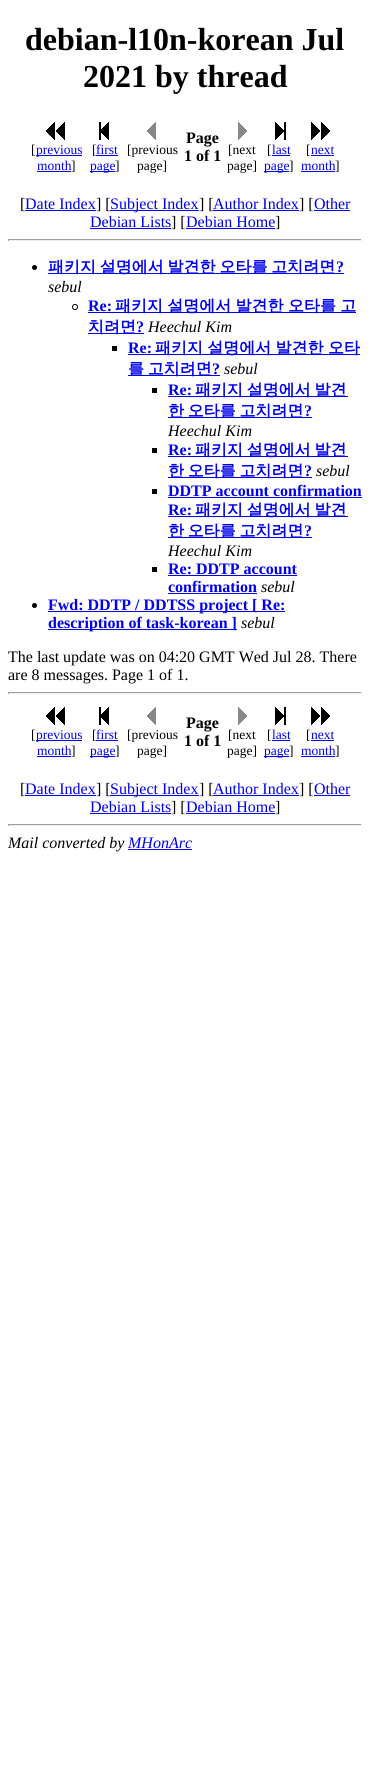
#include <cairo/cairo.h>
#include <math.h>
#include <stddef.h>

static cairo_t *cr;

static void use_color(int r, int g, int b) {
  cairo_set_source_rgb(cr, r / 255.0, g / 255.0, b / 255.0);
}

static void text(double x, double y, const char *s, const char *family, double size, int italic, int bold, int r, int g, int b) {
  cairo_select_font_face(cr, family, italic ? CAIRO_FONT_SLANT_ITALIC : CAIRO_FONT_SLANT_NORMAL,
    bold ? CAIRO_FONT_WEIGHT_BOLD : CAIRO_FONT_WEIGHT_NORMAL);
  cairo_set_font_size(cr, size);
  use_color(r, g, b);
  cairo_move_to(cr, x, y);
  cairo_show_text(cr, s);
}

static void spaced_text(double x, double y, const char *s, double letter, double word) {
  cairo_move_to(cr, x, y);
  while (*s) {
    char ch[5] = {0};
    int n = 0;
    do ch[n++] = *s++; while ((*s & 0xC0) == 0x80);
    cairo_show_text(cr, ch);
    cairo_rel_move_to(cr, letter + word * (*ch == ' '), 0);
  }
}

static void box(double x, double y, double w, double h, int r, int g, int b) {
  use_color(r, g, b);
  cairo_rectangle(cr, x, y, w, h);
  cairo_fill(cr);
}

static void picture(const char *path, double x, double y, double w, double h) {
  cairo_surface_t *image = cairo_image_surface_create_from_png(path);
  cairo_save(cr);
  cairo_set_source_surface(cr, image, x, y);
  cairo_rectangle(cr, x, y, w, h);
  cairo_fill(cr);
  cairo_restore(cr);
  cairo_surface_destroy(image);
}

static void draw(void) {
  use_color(255, 255, 255);
  cairo_paint(cr);
  picture("img_01.png", 46, 122, 19, 18);
  box(36, 155, 46, 1, 0, 0, 238);
  box(37, 171, 34, 1, 0, 0, 238);
  picture("img_02.png", 99, 122, 10, 18);
  box(96, 155, 22, 1, 0, 0, 238);
  box(90, 171, 25, 1, 0, 0, 238);
  picture("img_03.png", 147, 122, 9, 18);
  picture("img_04.png", 238, 122, 9, 18);
  picture("img_05.png", 275, 122, 11, 18);
  box(272, 155, 18, 1, 0, 0, 238);
  box(264, 171, 25, 1, 0, 0, 238);
  picture("img_06.png", 311, 122, 19, 18);
  box(311, 155, 23, 1, 0, 0, 238);
  box(301, 171, 34, 1, 0, 0, 238);
  box(25, 210, 71, 1, 0, 0, 238);
  box(110, 210, 89, 1, 0, 0, 238);
  box(213, 210, 86, 1, 0, 0, 238);
  box(314, 210, 36, 1, 0, 0, 238);
  box(90, 228, 81, 1, 0, 0, 238);
  box(186, 228, 89, 1, 0, 0, 238);
  box(8, 239, 354, 1, 159, 159, 159);
  box(361, 239, 1, 2, 238, 238, 238);
  box(8, 240, 354, 1, 238, 238, 238);
  box(8, 239, 1, 2, 159, 159, 159);
  use_color(0, 0, 0);
  cairo_arc(cr, 34.5, 267.5, 2.5, 0, 2 * M_PI);
  cairo_fill(cr);
  box(48, 273, 296, 1, 0, 0, 238);
  cairo_arc(cr, 75, 307, 2.5, 0, 2 * M_PI);
  use_color(0, 0, 0);
  cairo_set_line_width(cr, 1);
  cairo_stroke(cr);
  box(88, 312, 268, 1, 0, 0, 238);
  box(88, 333, 56, 1, 0, 0, 238);
  box(112, 346, 5, 5, 0, 0, 0);
  box(128, 354, 232, 1, 0, 0, 238);
  box(128, 375, 92, 1, 0, 0, 238);
  box(152, 388, 5, 5, 0, 0, 0);
  box(168, 396, 180, 1, 0, 0, 238);
  box(168, 417, 144, 1, 0, 0, 238);
  box(152, 448, 5, 5, 0, 0, 0);
  box(168, 456, 180, 1, 0, 0, 238);
  box(168, 477, 144, 1, 0, 0, 238);
  box(152, 489, 5, 5, 0, 0, 0);
  box(168, 497, 194, 1, 0, 0, 238);
  box(168, 516, 180, 1, 0, 0, 238);
  box(168, 537, 144, 1, 0, 0, 238);
  box(152, 567, 5, 5, 0, 0, 0);
  box(168, 575, 129, 1, 0, 0, 238);
  box(168, 593, 89, 1, 0, 0, 238);
  use_color(0, 0, 0);
  cairo_arc(cr, 34.5, 605.5, 2.5, 0, 2 * M_PI);
  cairo_fill(cr);
  box(48, 611, 237, 1, 0, 0, 238);
  box(48, 629, 189, 1, 0, 0, 238);
  box(8, 692, 354, 1, 159, 159, 159);
  box(361, 692, 1, 2, 238, 238, 238);
  box(8, 693, 354, 1, 238, 238, 238);
  box(8, 692, 1, 2, 159, 159, 159);
  picture("img_01.png", 46, 707, 19, 18);
  box(36, 740, 46, 1, 0, 0, 238);
  box(37, 756, 34, 1, 0, 0, 238);
  picture("img_02.png", 99, 707, 10, 18);
  box(96, 740, 22, 1, 0, 0, 238);
  box(90, 756, 25, 1, 0, 0, 238);
  picture("img_03.png", 147, 707, 9, 18);
  picture("img_04.png", 238, 707, 9, 18);
  picture("img_05.png", 275, 707, 11, 18);
  box(272, 740, 18, 1, 0, 0, 238);
  box(264, 756, 25, 1, 0, 0, 238);
  picture("img_06.png", 311, 707, 19, 18);
  box(311, 740, 23, 1, 0, 0, 238);
  box(301, 756, 34, 1, 0, 0, 238);
  box(25, 795, 71, 1, 0, 0, 238);
  box(110, 795, 89, 1, 0, 0, 238);
  box(213, 795, 86, 1, 0, 0, 238);
  box(314, 795, 36, 1, 0, 0, 238);
  box(90, 813, 81, 1, 0, 0, 238);
  box(186, 813, 89, 1, 0, 0, 238);
  box(8, 824, 354, 1, 159, 159, 159);
  box(361, 824, 1, 2, 238, 238, 238);
  box(8, 825, 354, 1, 238, 238, 238);
  box(8, 824, 1, 2, 159, 159, 159);
  box(128, 849, 64, 1, 0, 0, 238);
  text(25, 50, "debian-l10n-korean Jul", "Liberation Serif", 32, 0, 1, 0, 0, 0);
  text(83, 87, "2021 by thread", "Liberation Serif", 32, 0, 1, 0, 0, 0);
  text(31, 154, "[", "Liberation Serif", 13.5, 0, 0, 0, 0, 0);
  text(36, 154, "previous", "Liberation Serif", 13.5, 0, 0, 0, 0, 238);
  text(37, 170, "month", "Liberation Serif", 13.5, 0, 0, 0, 0, 238);
  text(71, 170, "]", "Liberation Serif", 13.5, 0, 0, 0, 0, 0);
  text(92, 154, "[", "Liberation Serif", 13.5, 0, 0, 0, 0, 0);
  text(96, 154, "first", "Liberation Serif", 13.5, 0, 0, 0, 0, 238);
  text(90, 170, "page", "Liberation Serif", 13.5, 0, 0, 0, 0, 238);
  text(115, 170, "]", "Liberation Serif", 13.5, 0, 0, 0, 0, 0);
  text(127, 154, "[previous", "Liberation Serif", 13.5, 0, 0, 0, 0, 0);
  text(137, 170, "page]", "Liberation Serif", 13.5, 0, 0, 0, 0, 0);
  text(186, 143, "Page", "Liberation Serif", 16, 0, 1, 0, 0, 0);
  text(184, 161, "1 of 1", "Liberation Serif", 16, 0, 1, 0, 0, 0);
  text(228, 154, "[next", "Liberation Serif", 13.5, 0, 0, 0, 0, 0);
  text(227, 170, "page]", "Liberation Serif", 13.5, 0, 0, 0, 0, 0);
  text(267, 154, "[", "Liberation Serif", 13.5, 0, 0, 0, 0, 0);
  text(272, 154, "last", "Liberation Serif", 13.5, 0, 0, 0, 0, 238);
  text(264, 170, "page", "Liberation Serif", 13.5, 0, 0, 0, 0, 238);
  text(289, 170, "]", "Liberation Serif", 13.5, 0, 0, 0, 0, 0);
  text(306, 154, "[", "Liberation Serif", 13.5, 0, 0, 0, 0, 0);
  text(311, 154, "next", "Liberation Serif", 13.5, 0, 0, 0, 0, 238);
  text(301, 170, "month", "Liberation Serif", 13.5, 0, 0, 0, 0, 238);
  text(335, 170, "]", "Liberation Serif", 13.5, 0, 0, 0, 0, 0);
  text(20, 209, "[", "Liberation Serif", 16, 0, 0, 0, 0, 0);
  text(25, 209, "Date Index", "Liberation Serif", 16, 0, 0, 0, 0, 238);
  text(96, 209, "] [", "Liberation Serif", 16, 0, 0, 0, 0, 0);
  text(110, 209, "Subject Index", "Liberation Serif", 16, 0, 0, 0, 0, 238);
  text(199, 209, "] [", "Liberation Serif", 16, 0, 0, 0, 0, 0);
  text(213, 209, "Author Index", "Liberation Serif", 16, 0, 0, 0, 0, 238);
  text(299, 209, "] [", "Liberation Serif", 16, 0, 0, 0, 0, 0);
  text(314, 209, "Other", "Liberation Serif", 16, 0, 0, 0, 0, 238);
  text(90, 227, "Debian Lists", "Liberation Serif", 16, 0, 0, 0, 0, 238);
  text(171, 227, "] [", "Liberation Serif", 16, 0, 0, 0, 0, 0);
  text(186, 227, "Debian Home", "Liberation Serif", 16, 0, 0, 0, 0, 238);
  text(275, 227, "]", "Liberation Serif", 16, 0, 0, 0, 0, 0);
  cairo_select_font_face(cr, "WenQuanYi Zen Hei", CAIRO_FONT_SLANT_NORMAL, CAIRO_FONT_WEIGHT_BOLD);
  use_color(0, 0, 238);
  spaced_text(48, 272, "패키지 설명에서 발견한 오타를 고치려면", 0, -1);
  text(336, 272, "?", "Liberation Serif", 16, 0, 1, 0, 0, 238);
  text(48, 292, "sebul", "Liberation Serif", 16, 1, 0, 0, 0, 0);
  text(88, 311, "Re:", "Liberation Serif", 16, 0, 1, 0, 0, 238);
  cairo_select_font_face(cr, "WenQuanYi Zen Hei", CAIRO_FONT_SLANT_NORMAL, CAIRO_FONT_WEIGHT_BOLD);
  spaced_text(115, 311, "패키지 설명에서 발견한 오타를 고", 0, -0.5);
  text(88, 332, "치려면", "WenQuanYi Zen Hei", 16, 0, 1, 0, 0, 238);
  text(136, 332, "?", "Liberation Serif", 16, 0, 1, 0, 0, 238);
  text(148, 332, "Heechul Kim", "Liberation Serif", 16, 1, 0, 0, 0, 0);
  text(128, 353, "Re:", "Liberation Serif", 16, 0, 1, 0, 0, 238);
  cairo_select_font_face(cr, "WenQuanYi Zen Hei", CAIRO_FONT_SLANT_NORMAL, CAIRO_FONT_WEIGHT_BOLD);
  spaced_text(155, 353, "패키지 설명에서 발견한 오타", 0, -0.5);
  spaced_text(128, 374, "를 고치려면", 0, -1);
  text(212, 374, "?", "Liberation Serif", 16, 0, 1, 0, 0, 238);
  text(224, 374, "sebul", "Liberation Serif", 16, 1, 0, 0, 0, 0);
  text(168, 395, "Re:", "Liberation Serif", 16, 0, 1, 0, 0, 238);
  cairo_select_font_face(cr, "WenQuanYi Zen Hei", CAIRO_FONT_SLANT_NORMAL, CAIRO_FONT_WEIGHT_BOLD);
  spaced_text(195, 395, "패키지 설명에서 발견", 0, -1);
  spaced_text(168, 416, "한 오타를 고치려면", 0, -1);
  text(304, 416, "?", "Liberation Serif", 16, 0, 1, 0, 0, 238);
  text(168, 436, "Heechul Kim", "Liberation Serif", 16, 1, 0, 0, 0, 0);
  text(168, 455, "Re:", "Liberation Serif", 16, 0, 1, 0, 0, 238);
  cairo_select_font_face(cr, "WenQuanYi Zen Hei", CAIRO_FONT_SLANT_NORMAL, CAIRO_FONT_WEIGHT_BOLD);
  spaced_text(195, 455, "패키지 설명에서 발견", 0, -1);
  spaced_text(168, 476, "한 오타를 고치려면", 0, -1);
  text(304, 476, "?", "Liberation Serif", 16, 0, 1, 0, 0, 238);
  text(316, 476, "sebul", "Liberation Serif", 16, 1, 0, 0, 0, 0);
  text(168, 496, "DDTP account confirmation", "Liberation Serif", 16, 0, 1, 0, 0, 238);
  text(168, 515, "Re:", "Liberation Serif", 16, 0, 1, 0, 0, 238);
  cairo_select_font_face(cr, "WenQuanYi Zen Hei", CAIRO_FONT_SLANT_NORMAL, CAIRO_FONT_WEIGHT_BOLD);
  spaced_text(195, 515, "패키지 설명에서 발견", 0, -1);
  spaced_text(168, 536, "한 오타를 고치려면", 0, -1);
  text(304, 536, "?", "Liberation Serif", 16, 0, 1, 0, 0, 238);
  text(168, 556, "Heechul Kim", "Liberation Serif", 16, 1, 0, 0, 0, 0);
  text(168, 574, "Re: DDTP account", "Liberation Serif", 16, 0, 1, 0, 0, 238);
  text(168, 592, "confirmation", "Liberation Serif", 16, 0, 1, 0, 0, 238);
  text(261, 592, "sebul", "Liberation Serif", 16, 1, 0, 0, 0, 0);
  text(48, 610, "Fwd: DDTP / DDTSS project [ Re:", "Liberation Serif", 16, 0, 1, 0, 0, 238);
  text(48, 628, "description of task-korean ]", "Liberation Serif", 16, 0, 1, 0, 0, 238);
  text(241, 628, "sebul", "Liberation Serif", 16, 1, 0, 0, 0, 0);
  text(8, 662, "The last update was on 04:20 GMT Wed Jul 28. There", "Liberation Serif", 16, 0, 0, 0, 0, 0);
  text(8, 680, "are 8 messages. Page 1 of 1.", "Liberation Serif", 16, 0, 0, 0, 0, 0);
  text(31, 739, "[", "Liberation Serif", 13.5, 0, 0, 0, 0, 0);
  text(36, 739, "previous", "Liberation Serif", 13.5, 0, 0, 0, 0, 238);
  text(37, 755, "month", "Liberation Serif", 13.5, 0, 0, 0, 0, 238);
  text(71, 755, "]", "Liberation Serif", 13.5, 0, 0, 0, 0, 0);
  text(92, 739, "[", "Liberation Serif", 13.5, 0, 0, 0, 0, 0);
  text(96, 739, "first", "Liberation Serif", 13.5, 0, 0, 0, 0, 238);
  text(90, 755, "page", "Liberation Serif", 13.5, 0, 0, 0, 0, 238);
  text(115, 755, "]", "Liberation Serif", 13.5, 0, 0, 0, 0, 0);
  text(127, 739, "[previous", "Liberation Serif", 13.5, 0, 0, 0, 0, 0);
  text(137, 755, "page]", "Liberation Serif", 13.5, 0, 0, 0, 0, 0);
  text(186, 728, "Page", "Liberation Serif", 16, 0, 1, 0, 0, 0);
  text(184, 746, "1 of 1", "Liberation Serif", 16, 0, 1, 0, 0, 0);
  text(228, 739, "[next", "Liberation Serif", 13.5, 0, 0, 0, 0, 0);
  text(227, 755, "page]", "Liberation Serif", 13.5, 0, 0, 0, 0, 0);
  text(267, 739, "[", "Liberation Serif", 13.5, 0, 0, 0, 0, 0);
  text(272, 739, "last", "Liberation Serif", 13.5, 0, 0, 0, 0, 238);
  text(264, 755, "page", "Liberation Serif", 13.5, 0, 0, 0, 0, 238);
  text(289, 755, "]", "Liberation Serif", 13.5, 0, 0, 0, 0, 0);
  text(306, 739, "[", "Liberation Serif", 13.5, 0, 0, 0, 0, 0);
  text(311, 739, "next", "Liberation Serif", 13.5, 0, 0, 0, 0, 238);
  text(301, 755, "month", "Liberation Serif", 13.5, 0, 0, 0, 0, 238);
  text(335, 755, "]", "Liberation Serif", 13.5, 0, 0, 0, 0, 0);
  text(20, 794, "[", "Liberation Serif", 16, 0, 0, 0, 0, 0);
  text(25, 794, "Date Index", "Liberation Serif", 16, 0, 0, 0, 0, 238);
  text(96, 794, "] [", "Liberation Serif", 16, 0, 0, 0, 0, 0);
  text(110, 794, "Subject Index", "Liberation Serif", 16, 0, 0, 0, 0, 238);
  text(199, 794, "] [", "Liberation Serif", 16, 0, 0, 0, 0, 0);
  text(213, 794, "Author Index", "Liberation Serif", 16, 0, 0, 0, 0, 238);
  text(299, 794, "] [", "Liberation Serif", 16, 0, 0, 0, 0, 0);
  text(314, 794, "Other", "Liberation Serif", 16, 0, 0, 0, 0, 238);
  text(90, 812, "Debian Lists", "Liberation Serif", 16, 0, 0, 0, 0, 238);
  text(171, 812, "] [", "Liberation Serif", 16, 0, 0, 0, 0, 0);
  text(186, 812, "Debian Home", "Liberation Serif", 16, 0, 0, 0, 0, 238);
  text(275, 812, "]", "Liberation Serif", 16, 0, 0, 0, 0, 0);
  text(8, 848, "Mail converted by", "Liberation Serif", 16, 1, 0, 0, 0, 0);
  text(128, 848, "MHonArc", "Liberation Serif", 16, 1, 0, 0, 0, 238);
}

int main(void) {
  cairo_surface_t *surface = cairo_image_surface_create(CAIRO_FORMAT_RGB24, 370, 1775);
  cr = cairo_create(surface);
  cairo_font_options_t *options = cairo_font_options_create();
  cairo_font_options_set_hint_metrics(options, CAIRO_HINT_METRICS_OFF);
  cairo_font_options_set_hint_style(options, CAIRO_HINT_STYLE_NONE);
  cairo_set_font_options(cr, options);
  cairo_set_miter_limit(cr, 4);
  draw();
  cairo_surface_write_to_png(surface, "out.png");
  cairo_font_options_destroy(options);
  cairo_destroy(cr);
  cairo_surface_destroy(surface);
  return 0;
}
